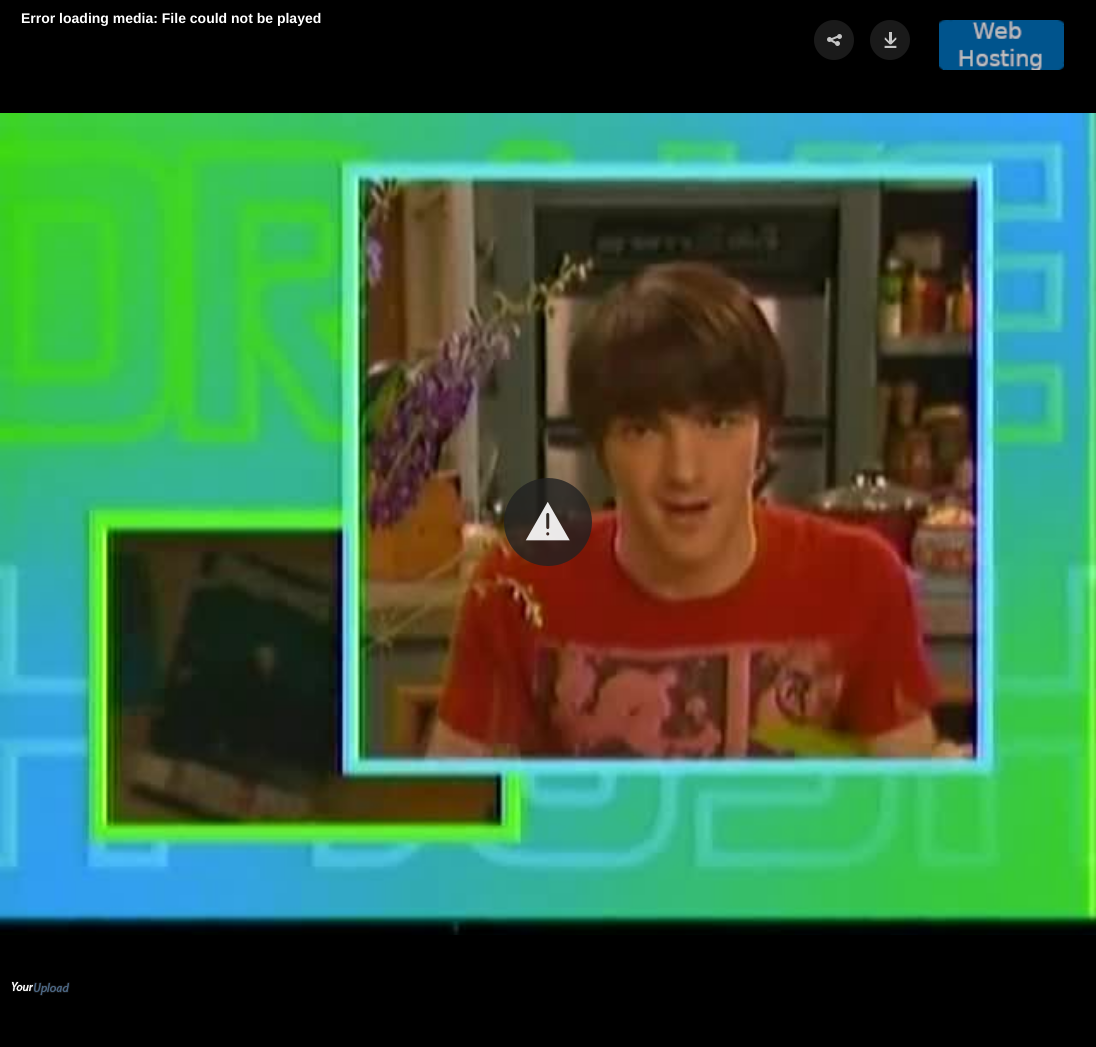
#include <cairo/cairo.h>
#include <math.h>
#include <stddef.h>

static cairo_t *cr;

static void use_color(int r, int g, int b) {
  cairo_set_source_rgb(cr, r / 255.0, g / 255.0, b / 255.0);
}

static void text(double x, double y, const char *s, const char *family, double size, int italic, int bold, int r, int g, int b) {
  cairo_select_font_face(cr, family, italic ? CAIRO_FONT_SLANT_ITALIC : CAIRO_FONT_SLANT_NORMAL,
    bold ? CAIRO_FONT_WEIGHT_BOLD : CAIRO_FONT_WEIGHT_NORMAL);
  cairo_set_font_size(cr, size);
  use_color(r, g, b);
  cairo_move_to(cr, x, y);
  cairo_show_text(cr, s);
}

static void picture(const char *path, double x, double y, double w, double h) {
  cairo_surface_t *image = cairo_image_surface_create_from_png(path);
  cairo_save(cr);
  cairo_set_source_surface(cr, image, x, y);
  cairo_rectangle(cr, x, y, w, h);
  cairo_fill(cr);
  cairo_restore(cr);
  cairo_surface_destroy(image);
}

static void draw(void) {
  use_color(0, 0, 0);
  cairo_paint(cr);
  use_color(26, 26, 26);
  cairo_arc(cr, 834, 40, 20, 0, 2 * M_PI);
  cairo_fill(cr);
  picture("img_01.png", 827, 34, 15, 12);
  cairo_arc(cr, 890, 40, 20, 0, 2 * M_PI);
  cairo_fill(cr);
  picture("img_02.png", 884, 32, 13, 16);
  picture("img_03.png", 939, 20, 125, 50);
  picture("img_04.png", 11, 981, 59, 15);
  picture("img_06.png", 0, 113, 1096, 822);
  cairo_set_source_rgba(cr, 0.129, 0.129, 0.129, 0.8);
  cairo_arc(cr, 548, 522, 44, 0, 2 * M_PI);
  cairo_fill(cr);
  picture("img_05.png", 525, 502, 45, 39);
  text(21, 23, "Error loading media: File could not be played", "Liberation Sans", 14, 0, 1, 255, 255, 255);
}

int main(void) {
  cairo_surface_t *surface = cairo_image_surface_create(CAIRO_FORMAT_RGB24, 1096, 1047);
  cr = cairo_create(surface);
  cairo_font_options_t *options = cairo_font_options_create();
  cairo_font_options_set_hint_metrics(options, CAIRO_HINT_METRICS_OFF);
  cairo_font_options_set_hint_style(options, CAIRO_HINT_STYLE_NONE);
  cairo_set_font_options(cr, options);
  cairo_set_miter_limit(cr, 4);
  draw();
  cairo_surface_write_to_png(surface, "out.png");
  cairo_font_options_destroy(options);
  cairo_destroy(cr);
  cairo_surface_destroy(surface);
  return 0;
}
